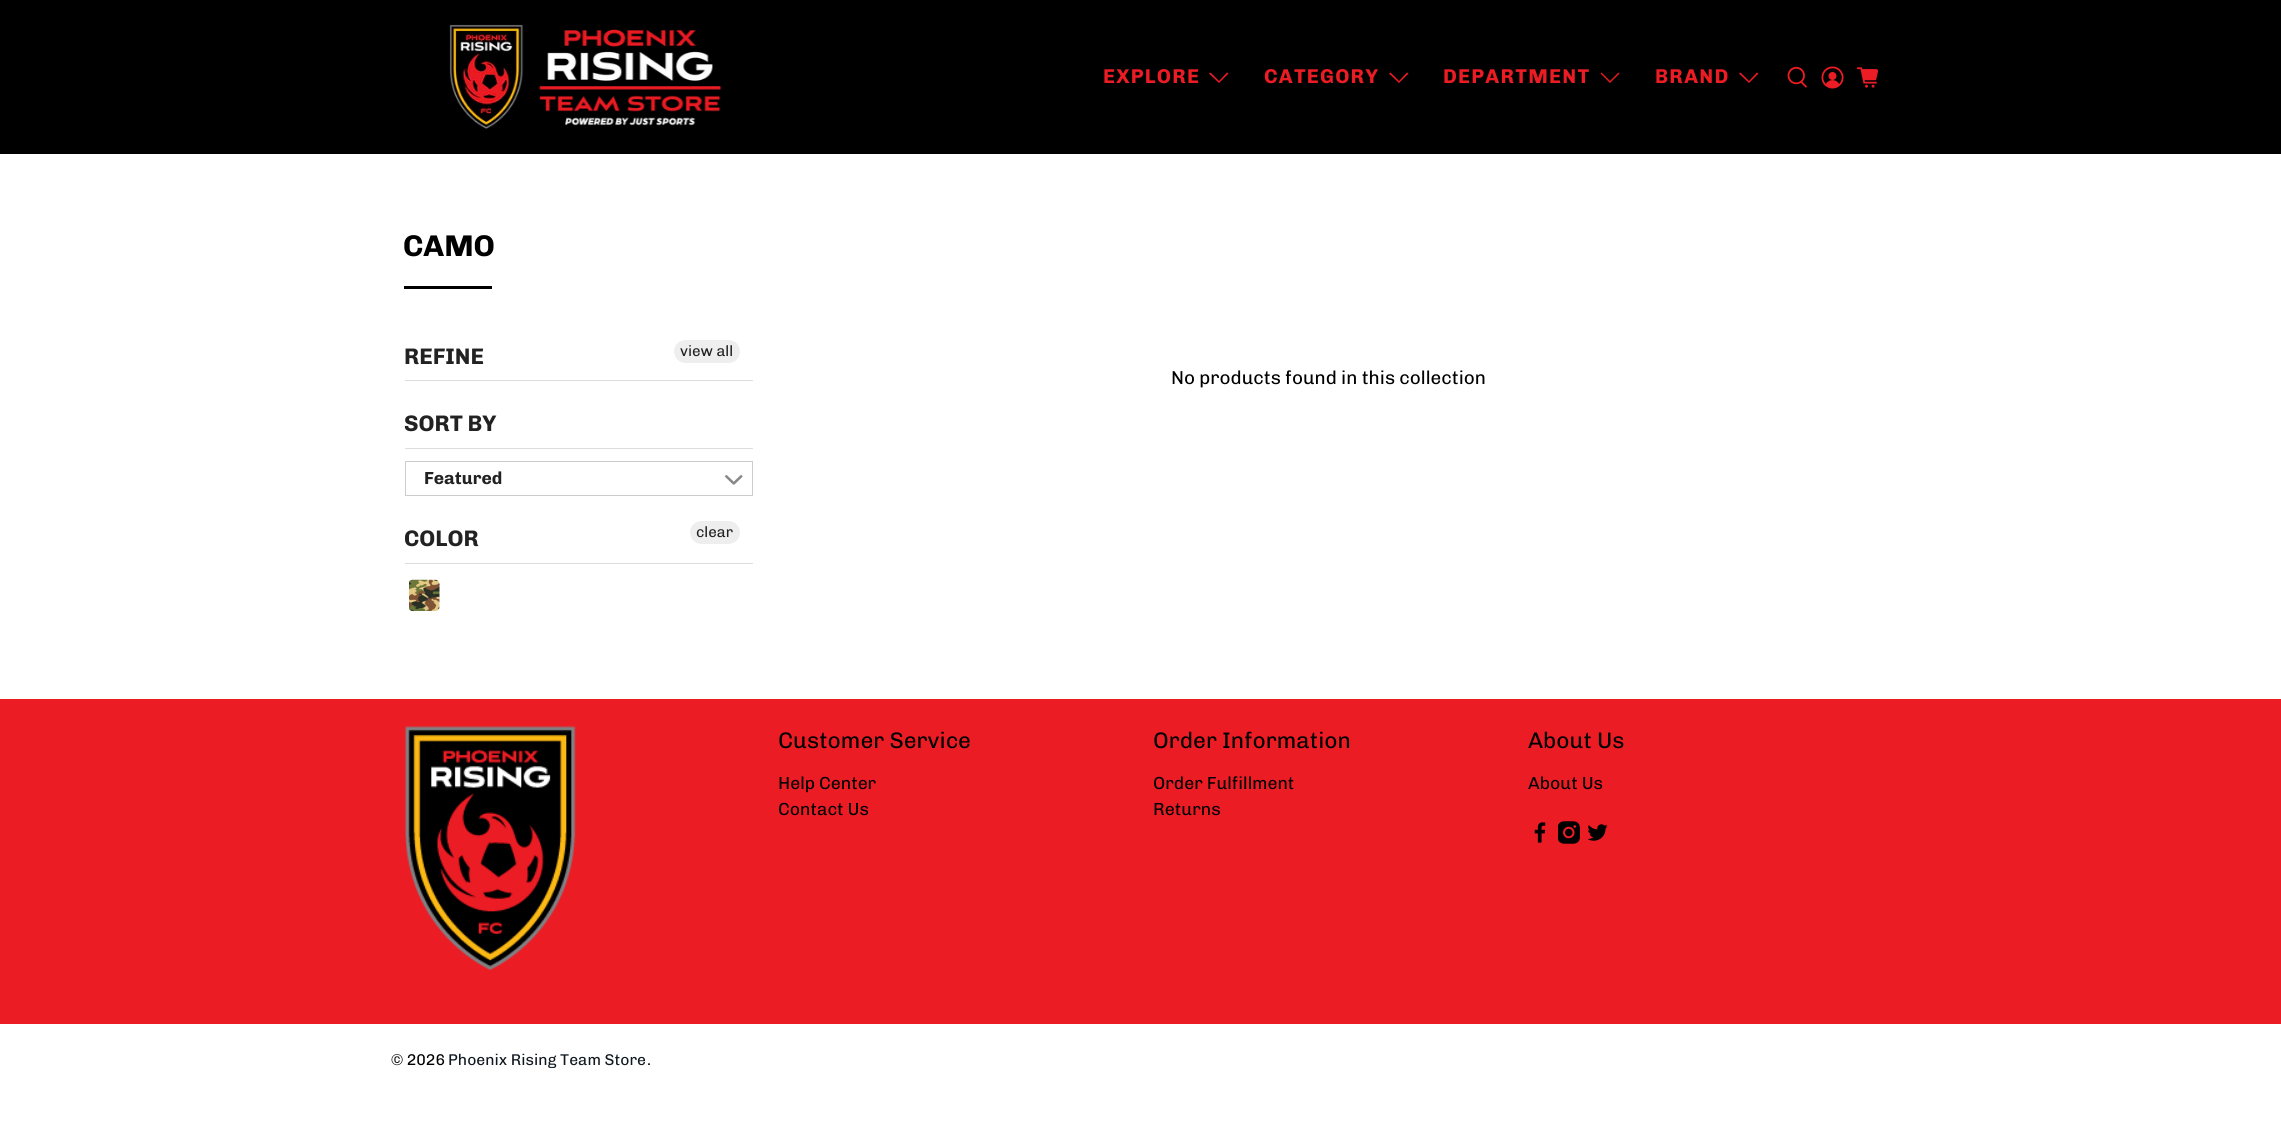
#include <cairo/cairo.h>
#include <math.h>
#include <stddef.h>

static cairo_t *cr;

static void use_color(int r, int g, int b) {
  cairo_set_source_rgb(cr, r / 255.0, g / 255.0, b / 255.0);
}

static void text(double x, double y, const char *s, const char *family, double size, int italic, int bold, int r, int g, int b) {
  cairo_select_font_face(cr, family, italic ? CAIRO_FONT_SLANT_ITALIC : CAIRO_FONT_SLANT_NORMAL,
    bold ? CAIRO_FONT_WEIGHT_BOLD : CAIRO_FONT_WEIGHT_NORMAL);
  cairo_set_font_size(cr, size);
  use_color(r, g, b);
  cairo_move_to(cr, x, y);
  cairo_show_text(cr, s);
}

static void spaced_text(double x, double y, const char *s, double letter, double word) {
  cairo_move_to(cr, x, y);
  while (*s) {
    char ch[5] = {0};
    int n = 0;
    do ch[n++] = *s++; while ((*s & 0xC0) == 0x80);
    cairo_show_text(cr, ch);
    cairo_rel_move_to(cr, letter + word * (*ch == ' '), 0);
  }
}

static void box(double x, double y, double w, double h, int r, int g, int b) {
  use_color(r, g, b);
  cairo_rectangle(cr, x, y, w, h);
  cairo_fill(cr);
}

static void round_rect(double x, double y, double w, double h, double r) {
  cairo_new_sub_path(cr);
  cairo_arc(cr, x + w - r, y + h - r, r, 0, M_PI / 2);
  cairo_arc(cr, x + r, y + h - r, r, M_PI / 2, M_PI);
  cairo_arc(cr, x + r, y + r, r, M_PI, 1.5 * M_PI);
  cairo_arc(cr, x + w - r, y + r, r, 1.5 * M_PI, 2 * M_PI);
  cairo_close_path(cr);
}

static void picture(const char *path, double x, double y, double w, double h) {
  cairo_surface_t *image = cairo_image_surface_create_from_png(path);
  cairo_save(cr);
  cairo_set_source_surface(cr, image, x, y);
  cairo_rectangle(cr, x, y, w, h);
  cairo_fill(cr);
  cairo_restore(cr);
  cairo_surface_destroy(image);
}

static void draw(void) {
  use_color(255, 255, 255);
  cairo_paint(cr);
  box(0, 0, 2281, 154, 0, 0, 0);
  picture("img_01.png", 449, 24, 273, 105);
  use_color(236, 28, 36);
  cairo_new_path(cr);
  cairo_move_to(cr, 1219, 83);
  cairo_line_to(cr, 1209, 73.5);
  cairo_line_to(cr, 1210.5, 72.5);
  cairo_line_to(cr, 1219, 81);
  cairo_line_to(cr, 1227, 72.5);
  cairo_line_to(cr, 1228.5, 73.5);
  cairo_close_path(cr);
  cairo_fill(cr);
  cairo_new_path(cr);
  cairo_move_to(cr, 1399, 83);
  cairo_line_to(cr, 1389, 73.5);
  cairo_line_to(cr, 1390.5, 72.5);
  cairo_line_to(cr, 1399, 81);
  cairo_line_to(cr, 1407, 72.5);
  cairo_line_to(cr, 1408.5, 73.5);
  cairo_close_path(cr);
  cairo_fill(cr);
  cairo_new_path(cr);
  cairo_move_to(cr, 1610, 83);
  cairo_line_to(cr, 1600.5, 73.5);
  cairo_line_to(cr, 1601.5, 72.5);
  cairo_line_to(cr, 1610, 81);
  cairo_line_to(cr, 1618.5, 72.5);
  cairo_line_to(cr, 1619.5, 73.5);
  cairo_close_path(cr);
  cairo_fill(cr);
  cairo_new_path(cr);
  cairo_move_to(cr, 1749, 83);
  cairo_line_to(cr, 1739, 73.5);
  cairo_line_to(cr, 1740.5, 72.5);
  cairo_line_to(cr, 1749, 81);
  cairo_line_to(cr, 1757, 72.5);
  cairo_line_to(cr, 1758.5, 73.5);
  cairo_close_path(cr);
  cairo_fill(cr);
  picture("img_02.png", 1787, 66, 20, 22);
  picture("img_03.png", 1821, 66, 23, 23);
  picture("img_04.png", 1856, 67, 22, 21);
  box(404, 286, 88, 3, 0, 0, 0);
  box(405, 380, 348, 1, 221, 221, 221);
  use_color(238, 238, 238);
  round_rect(674, 340, 66, 23, 11.5);
  cairo_fill(cr);
  box(405, 448, 348, 1, 221, 221, 221);
  cairo_rectangle(cr, 405.5, 461.5, 347, 34);
  use_color(204, 204, 204);
  cairo_set_line_width(cr, 1);
  cairo_stroke(cr);
  picture("img_05.png", 725, 475, 18, 10);
  box(405, 563, 348, 1, 221, 221, 221);
  use_color(238, 238, 238);
  round_rect(690, 521, 50, 23, 11.5);
  cairo_fill(cr);
  picture("img_06.png", 409, 579, 31, 32);
  box(0, 699, 2281, 325, 236, 28, 36);
  picture("img_07.png", 405, 726, 171, 245);
  picture("img_08.png", 1534, 822, 12, 21);
  picture("img_09.png", 1558, 821, 22, 23);
  picture("img_10.png", 1587, 824, 21, 17);
  cairo_select_font_face(cr, "Chivo", CAIRO_FONT_SLANT_NORMAL, CAIRO_FONT_WEIGHT_BOLD);
  cairo_set_font_size(cr, 20);
  spaced_text(1103, 83, "EXPLORE", 1.25, 0);
  spaced_text(1264, 83, "CATEGORY", 1.25, 0);
  spaced_text(1443, 83, "DEPARTMENT", 1.25, 0);
  spaced_text(1655, 83, "BRAND", 1.25, 0);
  text(403, 256, "CAMO", "Chivo", 30, 0, 1, 0, 0, 0);
  text(404, 364, "REFINE", "Chivo", 22.5, 0, 1, 34, 34, 34);
  text(680, 356, "view all", "Chivo", 15, 0, 0, 34, 34, 34);
  text(404, 431, "SORT BY", "Chivo", 22.5, 0, 1, 34, 34, 34);
  text(424, 484, "Featured", "Chivo", 17.5, 0, 1, 34, 34, 34);
  text(404, 546, "COLOR", "Chivo", 22.5, 0, 1, 34, 34, 34);
  text(696, 537, "clear", "Chivo", 15, 0, 0, 34, 34, 34);
  text(1171, 384, "No products found in this collection", "Chivo", 18.75, 0, 0, 0, 0, 0);
  text(778, 748, "Customer Service", "Chivo", 22.5, 0, 0, 0, 0, 0);
  text(778, 789, "Help Center", "Chivo", 17.5, 0, 0, 0, 0, 0);
  text(778, 815, "Contact Us", "Chivo", 17.5, 0, 0, 0, 0, 0);
  text(1153, 748, "Order Information", "Chivo", 22.5, 0, 0, 0, 0, 0);
  text(1153, 789, "Order Fulfillment", "Chivo", 17.5, 0, 0, 0, 0, 0);
  text(1153, 815, "Returns", "Chivo", 17.5, 0, 0, 0, 0, 0);
  text(1528, 748, "About Us", "Chivo", 22.5, 0, 0, 0, 0, 0);
  text(1528, 789, "About Us", "Chivo", 17.5, 0, 0, 0, 0, 0);
  text(391, 1065, "© 2026", "Chivo", 15.6, 0, 0, 0, 0, 0);
  text(448, 1065, "Phoenix Rising Team Store", "Chivo", 15.6, 0, 0, 16, 24, 32);
  text(647, 1065, ".", "Chivo", 15.6, 0, 0, 0, 0, 0);
}

int main(void) {
  cairo_surface_t *surface = cairo_image_surface_create(CAIRO_FORMAT_RGB24, 2281, 1133);
  cr = cairo_create(surface);
  cairo_font_options_t *options = cairo_font_options_create();
  cairo_font_options_set_hint_metrics(options, CAIRO_HINT_METRICS_OFF);
  cairo_font_options_set_hint_style(options, CAIRO_HINT_STYLE_NONE);
  cairo_set_font_options(cr, options);
  cairo_set_miter_limit(cr, 4);
  draw();
  cairo_surface_write_to_png(surface, "out.png");
  cairo_font_options_destroy(options);
  cairo_destroy(cr);
  cairo_surface_destroy(surface);
  return 0;
}
